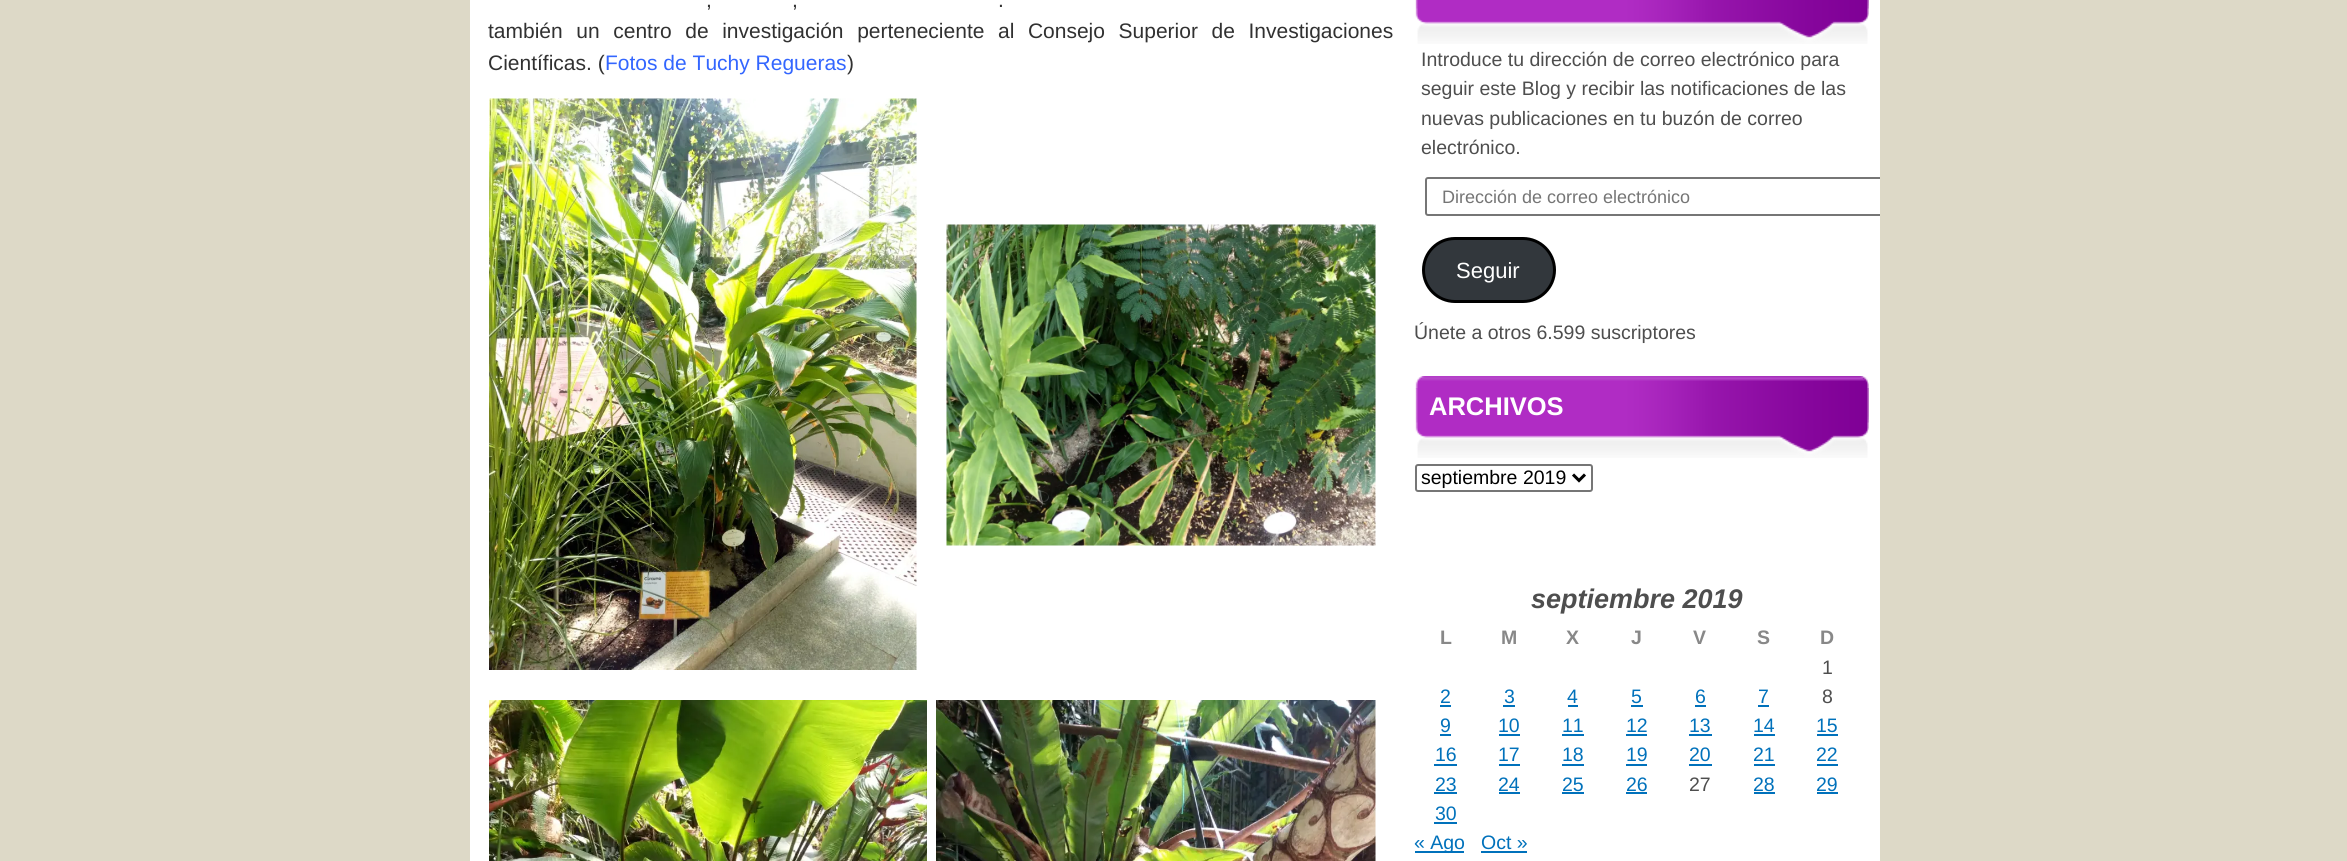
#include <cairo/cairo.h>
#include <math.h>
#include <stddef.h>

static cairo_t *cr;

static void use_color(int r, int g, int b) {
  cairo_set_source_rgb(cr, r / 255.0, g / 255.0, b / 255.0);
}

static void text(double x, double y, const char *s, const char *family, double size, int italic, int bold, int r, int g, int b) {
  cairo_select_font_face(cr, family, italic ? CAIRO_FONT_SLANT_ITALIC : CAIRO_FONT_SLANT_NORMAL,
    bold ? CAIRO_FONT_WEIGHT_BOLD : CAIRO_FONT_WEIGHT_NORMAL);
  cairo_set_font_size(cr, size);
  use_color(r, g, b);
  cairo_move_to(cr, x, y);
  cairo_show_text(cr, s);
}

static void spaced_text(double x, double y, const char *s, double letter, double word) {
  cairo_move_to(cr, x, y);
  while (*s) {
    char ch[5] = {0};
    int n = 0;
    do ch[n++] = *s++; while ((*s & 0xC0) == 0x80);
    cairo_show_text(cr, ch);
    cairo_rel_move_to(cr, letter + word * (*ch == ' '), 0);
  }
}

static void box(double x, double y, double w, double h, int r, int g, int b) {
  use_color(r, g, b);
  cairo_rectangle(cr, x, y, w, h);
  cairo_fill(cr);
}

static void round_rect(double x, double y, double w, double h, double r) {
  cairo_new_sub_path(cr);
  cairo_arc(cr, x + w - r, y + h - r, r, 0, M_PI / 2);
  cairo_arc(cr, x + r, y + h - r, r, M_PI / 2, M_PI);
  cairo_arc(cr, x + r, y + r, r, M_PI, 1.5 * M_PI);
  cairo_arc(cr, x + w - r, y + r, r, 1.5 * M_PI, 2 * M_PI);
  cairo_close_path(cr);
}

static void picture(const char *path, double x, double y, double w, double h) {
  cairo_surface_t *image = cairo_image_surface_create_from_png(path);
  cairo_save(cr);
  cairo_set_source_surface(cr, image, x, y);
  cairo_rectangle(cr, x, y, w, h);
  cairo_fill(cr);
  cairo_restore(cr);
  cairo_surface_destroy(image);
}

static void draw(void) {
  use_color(221, 217, 199);
  cairo_paint(cr);
  box(470, 0, 1410, 861, 255, 255, 255);
  picture("img_01.png", 489, 98, 428, 572);
  picture("img_02.png", 946, 224, 430, 322);
  picture("img_03.png", 489, 700, 438, 161);
  picture("img_04.png", 936, 700, 440, 161);
  picture("img_05.png", 1415, 0, 454, 44);
  cairo_save(cr);
  cairo_rectangle(cr, 1415, 0, 465, 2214);
  cairo_clip(cr);
  round_rect(1426, 178, 459, 37, 2);
  use_color(118, 118, 118);
  cairo_stroke(cr);
  cairo_restore(cr);
  use_color(50, 55, 60);
  round_rect(1423.5, 238.5, 131, 63, 31.5);
  cairo_fill_preserve(cr);
  use_color(0, 0, 0);
  cairo_set_line_width(cr, 3);
  cairo_stroke(cr);
  picture("img_06.png", 1415, 376, 454, 13);
  picture("img_07.png", 1415, 388, 454, 70);
  round_rect(1416, 465, 176, 26, 2);
  use_color(118, 118, 118);
  cairo_set_line_width(cr, 2);
  cairo_stroke(cr);
  cairo_new_path(cr);
  cairo_move_to(cr, 1573, 474.5);
  cairo_line_to(cr, 1579, 480.5);
  cairo_line_to(cr, 1585, 474.5);
  use_color(0, 0, 0);
  cairo_set_line_width(cr, 3);
  cairo_stroke(cr);
  box(1440, 705, 11, 2, 0, 113, 187);
  box(1503, 705, 12, 2, 0, 113, 187);
  box(1568, 705, 10, 2, 0, 113, 187);
  box(1631, 705, 12, 2, 0, 113, 187);
  box(1695, 705, 11, 2, 0, 113, 187);
  box(1758, 705, 11, 2, 0, 113, 187);
  box(1440, 734, 11, 2, 0, 113, 187);
  box(1499, 734, 21, 2, 0, 113, 187);
  box(1562, 734, 22, 2, 0, 113, 187);
  box(1626, 734, 21, 2, 0, 113, 187);
  box(1689, 734, 23, 2, 0, 113, 187);
  box(1754, 734, 21, 2, 0, 113, 187);
  box(1817, 734, 21, 2, 0, 113, 187);
  box(1434, 764, 23, 2, 0, 113, 187);
  box(1499, 764, 21, 2, 0, 113, 187);
  box(1562, 764, 22, 2, 0, 113, 187);
  box(1626, 764, 21, 2, 0, 113, 187);
  box(1689, 764, 23, 2, 0, 113, 187);
  box(1754, 764, 21, 2, 0, 113, 187);
  box(1817, 764, 21, 2, 0, 113, 187);
  box(1434, 792, 23, 2, 0, 113, 187);
  box(1499, 792, 21, 2, 0, 113, 187);
  box(1562, 792, 22, 2, 0, 113, 187);
  box(1626, 792, 21, 2, 0, 113, 187);
  box(1754, 792, 21, 2, 0, 113, 187);
  box(1817, 792, 21, 2, 0, 113, 187);
  box(1434, 822, 23, 2, 0, 113, 187);
  box(1415, 851, 49, 2, 0, 113, 187);
  box(1481, 851, 46, 2, 0, 113, 187);
  cairo_select_font_face(cr, "Liberation Sans", CAIRO_FONT_SLANT_NORMAL, CAIRO_FONT_WEIGHT_NORMAL);
  cairo_set_font_size(cr, 21);
  use_color(49, 49, 49);
  spaced_text(706, 7, ",", 0, 6);
  spaced_text(792, 7, ",", 0, 6);
  spaced_text(998, 7, ".", 0, 6);
  spaced_text(488, 38, "también un centro de investigación perteneciente al Consejo Superior de Investigaciones", 0, 7.75);
  text(488, 70, "Científicas. (", "Liberation Sans", 21, 0, 0, 49, 49, 49);
  text(605, 70, "Fotos de Tuchy Regueras", "Liberation Sans", 21, 0, 0, 51, 102, 255);
  text(847, 70, ")", "Liberation Sans", 21, 0, 0, 49, 49, 49);
  text(1421, 66, "Introduce tu dirección de correo electrónico para", "Liberation Sans", 19.5, 0, 0, 78, 78, 78);
  text(1421, 95, "seguir este Blog y recibir las notificaciones de las", "Liberation Sans", 19.5, 0, 0, 78, 78, 78);
  text(1421, 125, "nuevas publicaciones en tu buzón de correo", "Liberation Sans", 19.5, 0, 0, 78, 78, 78);
  text(1421, 154, "electrónico.", "Liberation Sans", 19.5, 0, 0, 78, 78, 78);
  text(1442, 203, "Dirección de correo electrónico", "Liberation Sans", 18, 0, 0, 117, 117, 117);
  text(1456, 278, "Seguir", "Liberation Sans", 22, 0, 0, 255, 255, 255);
  text(1414, 339, "Únete a otros 6.599 suscriptores", "Liberation Sans", 19.5, 0, 0, 78, 78, 78);
  text(1429, 415, "ARCHIVOS", "Liberation Sans", 25.5, 0, 1, 255, 255, 255);
  text(1421, 484, "septiembre 2019", "Liberation Sans", 19.5, 0, 0, 0, 0, 0);
  text(1531, 608, "septiembre 2019", "Liberation Sans", 27, 1, 1, 78, 78, 78);
  text(1440, 644, "L", "Liberation Sans", 19.5, 0, 1, 136, 136, 136);
  text(1501, 644, "M", "Liberation Sans", 19.5, 0, 1, 136, 136, 136);
  text(1566, 644, "X", "Liberation Sans", 19.5, 0, 1, 136, 136, 136);
  text(1631, 644, "J", "Liberation Sans", 19.5, 0, 1, 136, 136, 136);
  text(1693, 644, "V", "Liberation Sans", 19.5, 0, 1, 136, 136, 136);
  text(1757, 644, "S", "Liberation Sans", 19.5, 0, 1, 136, 136, 136);
  text(1820, 644, "D", "Liberation Sans", 19.5, 0, 1, 136, 136, 136);
  text(1822, 674, "1", "Liberation Sans", 19.5, 0, 0, 78, 78, 78);
  text(1440, 703, "2", "Liberation Sans", 19.5, 0, 0, 0, 113, 187);
  text(1504, 703, "3", "Liberation Sans", 19.5, 0, 0, 0, 113, 187);
  text(1567, 703, "4", "Liberation Sans", 19.5, 0, 0, 0, 113, 187);
  text(1631, 703, "5", "Liberation Sans", 19.5, 0, 0, 0, 113, 187);
  text(1695, 703, "6", "Liberation Sans", 19.5, 0, 0, 0, 113, 187);
  text(1758, 703, "7", "Liberation Sans", 19.5, 0, 0, 0, 113, 187);
  text(1822, 703, "8", "Liberation Sans", 19.5, 0, 0, 78, 78, 78);
  text(1440, 732, "9", "Liberation Sans", 19.5, 0, 0, 0, 113, 187);
  text(1498, 732, "10", "Liberation Sans", 19.5, 0, 0, 0, 113, 187);
  text(1562, 732, "11", "Liberation Sans", 19.5, 0, 0, 0, 113, 187);
  text(1626, 732, "12", "Liberation Sans", 19.5, 0, 0, 0, 113, 187);
  text(1689, 732, "13", "Liberation Sans", 19.5, 0, 0, 0, 113, 187);
  text(1753, 732, "14", "Liberation Sans", 19.5, 0, 0, 0, 113, 187);
  text(1816, 732, "15", "Liberation Sans", 19.5, 0, 0, 0, 113, 187);
  text(1435, 761, "16", "Liberation Sans", 19.5, 0, 0, 0, 113, 187);
  text(1498, 761, "17", "Liberation Sans", 19.5, 0, 0, 0, 113, 187);
  text(1562, 761, "18", "Liberation Sans", 19.5, 0, 0, 0, 113, 187);
  text(1626, 761, "19", "Liberation Sans", 19.5, 0, 0, 0, 113, 187);
  text(1689, 761, "20", "Liberation Sans", 19.5, 0, 0, 0, 113, 187);
  text(1753, 761, "21", "Liberation Sans", 19.5, 0, 0, 0, 113, 187);
  text(1816, 761, "22", "Liberation Sans", 19.5, 0, 0, 0, 113, 187);
  text(1435, 791, "23", "Liberation Sans", 19.5, 0, 0, 0, 113, 187);
  text(1498, 791, "24", "Liberation Sans", 19.5, 0, 0, 0, 113, 187);
  text(1562, 791, "25", "Liberation Sans", 19.5, 0, 0, 0, 113, 187);
  text(1626, 791, "26", "Liberation Sans", 19.5, 0, 0, 0, 113, 187);
  text(1689, 791, "27", "Liberation Sans", 19.5, 0, 0, 78, 78, 78);
  text(1753, 791, "28", "Liberation Sans", 19.5, 0, 0, 0, 113, 187);
  text(1816, 791, "29", "Liberation Sans", 19.5, 0, 0, 0, 113, 187);
  text(1435, 820, "30", "Liberation Sans", 19.5, 0, 0, 0, 113, 187);
  text(1414, 849, "« Ago", "Liberation Sans", 19.5, 0, 0, 0, 113, 187);
  text(1481, 849, "Oct »", "Liberation Sans", 19.5, 0, 0, 0, 113, 187);
}

int main(void) {
  cairo_surface_t *surface = cairo_image_surface_create(CAIRO_FORMAT_RGB24, 2347, 861);
  cr = cairo_create(surface);
  cairo_font_options_t *options = cairo_font_options_create();
  cairo_font_options_set_hint_metrics(options, CAIRO_HINT_METRICS_OFF);
  cairo_font_options_set_hint_style(options, CAIRO_HINT_STYLE_NONE);
  cairo_set_font_options(cr, options);
  cairo_set_miter_limit(cr, 4);
  draw();
  cairo_surface_write_to_png(surface, "out.png");
  cairo_font_options_destroy(options);
  cairo_destroy(cr);
  cairo_surface_destroy(surface);
  return 0;
}
